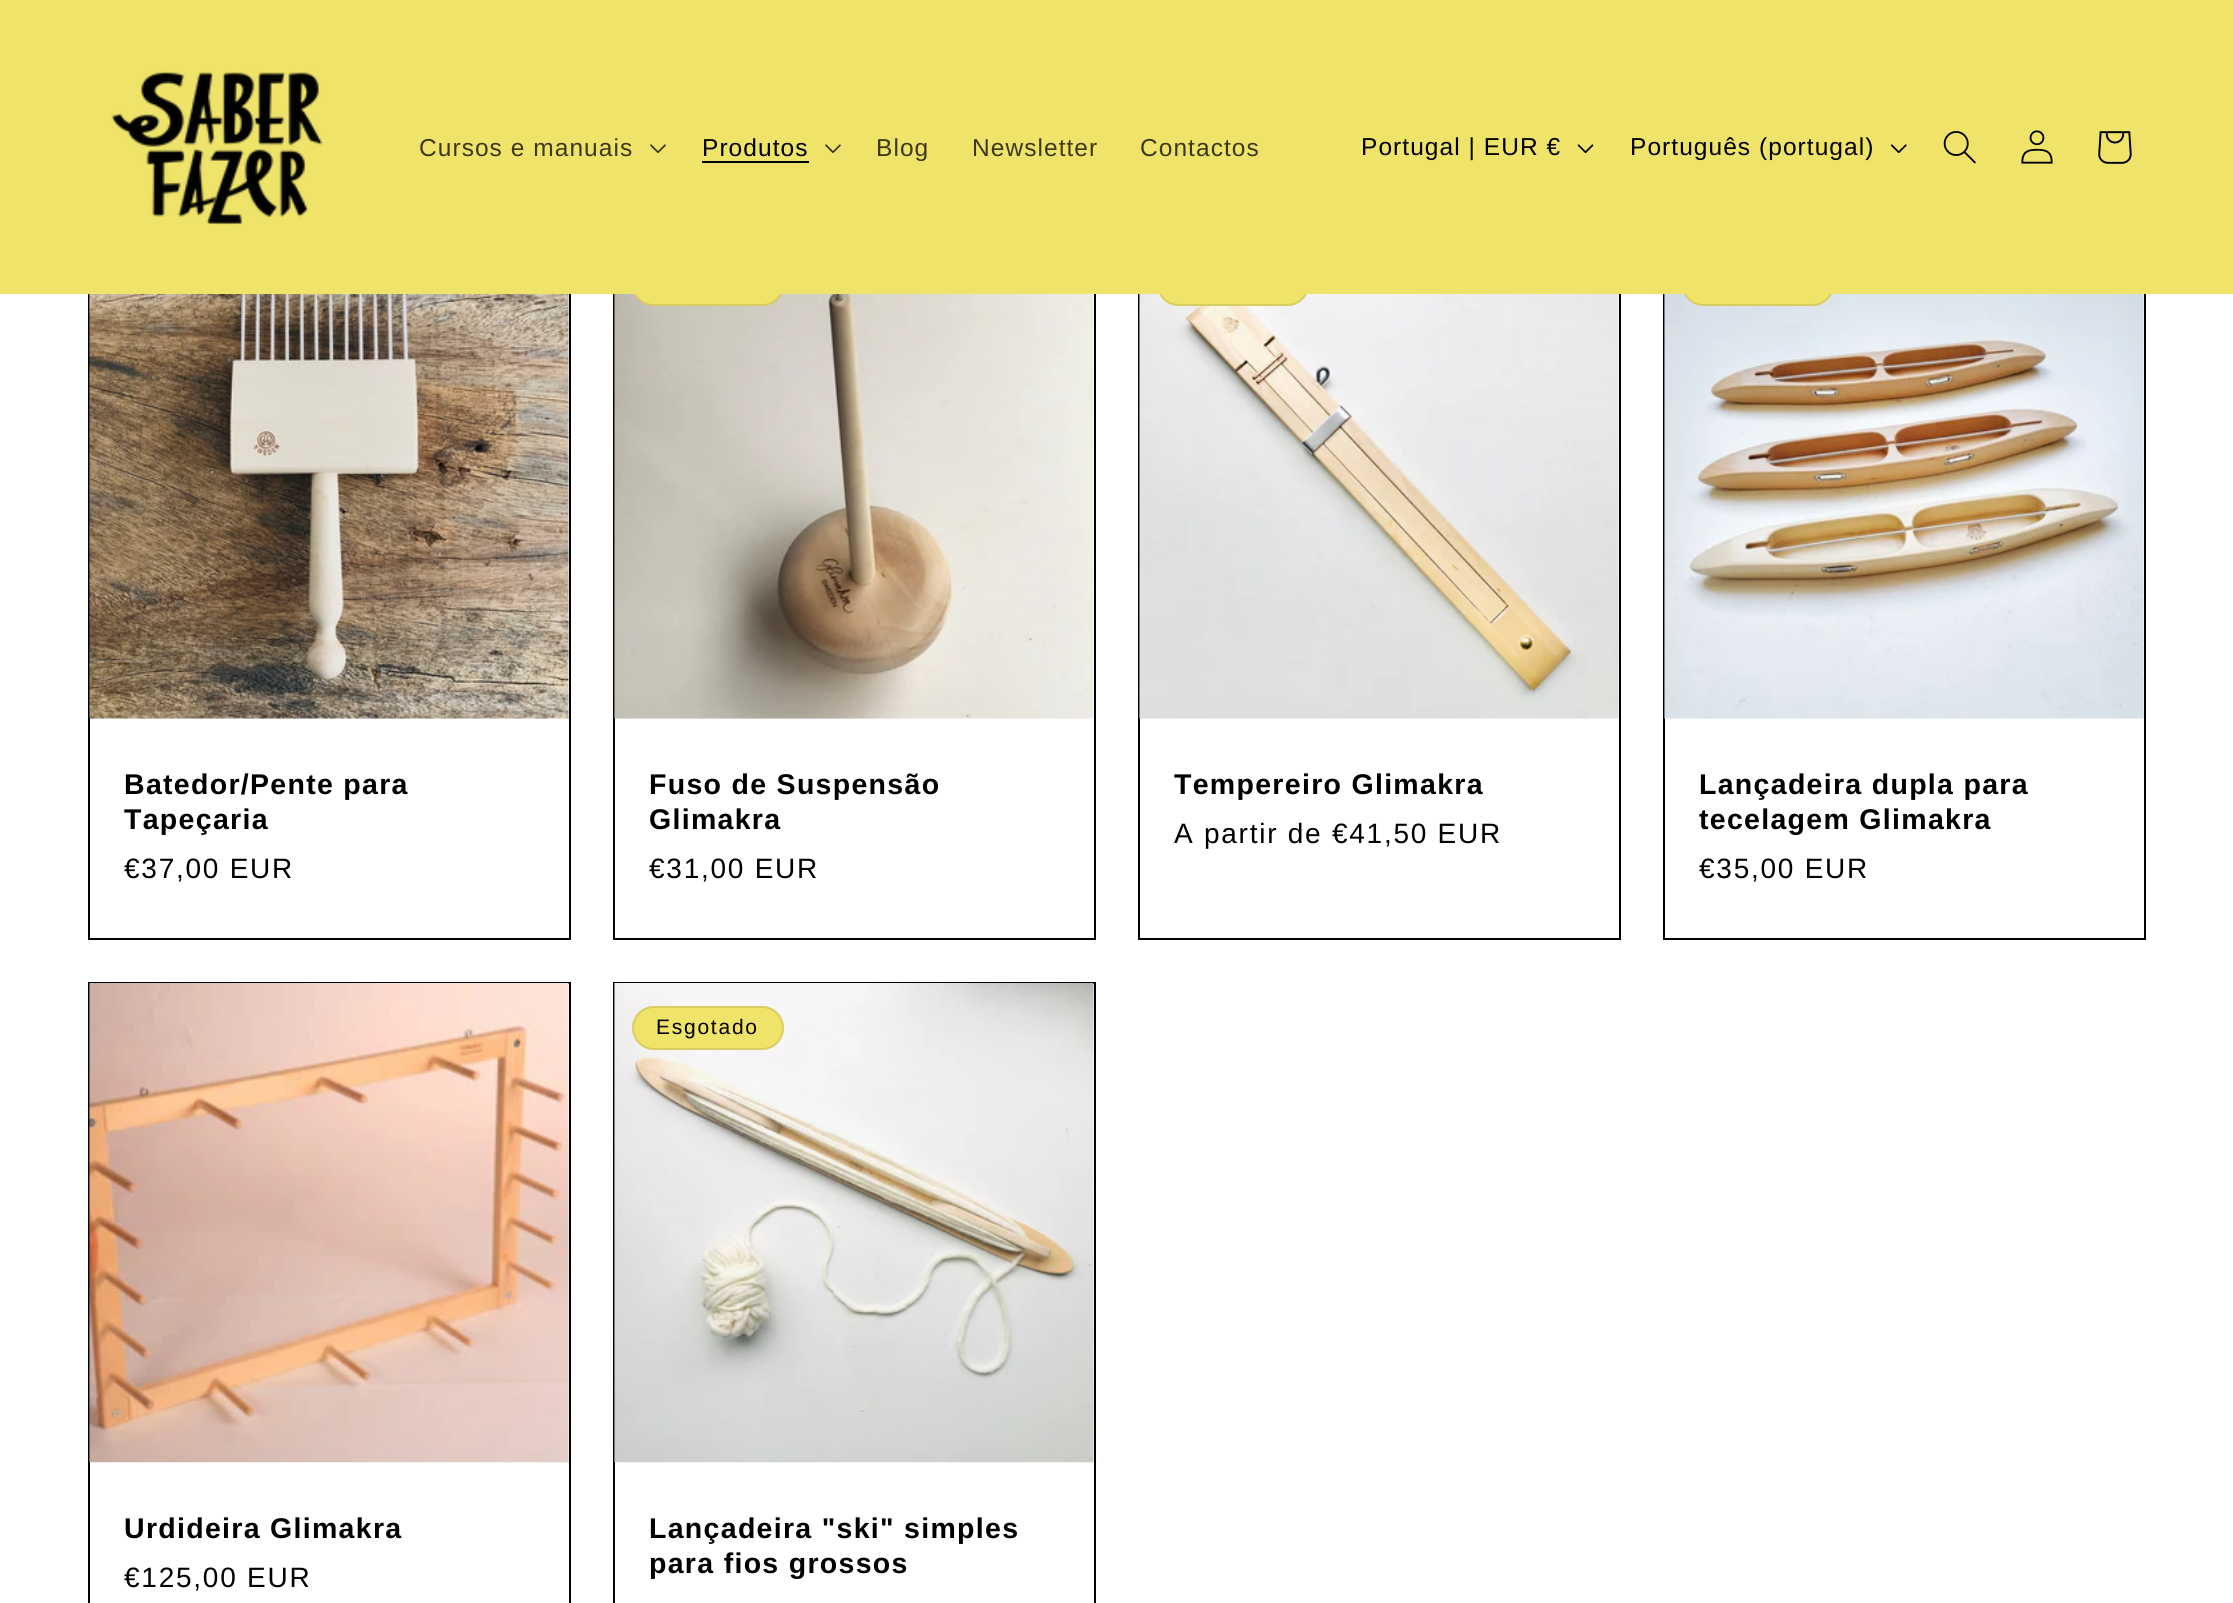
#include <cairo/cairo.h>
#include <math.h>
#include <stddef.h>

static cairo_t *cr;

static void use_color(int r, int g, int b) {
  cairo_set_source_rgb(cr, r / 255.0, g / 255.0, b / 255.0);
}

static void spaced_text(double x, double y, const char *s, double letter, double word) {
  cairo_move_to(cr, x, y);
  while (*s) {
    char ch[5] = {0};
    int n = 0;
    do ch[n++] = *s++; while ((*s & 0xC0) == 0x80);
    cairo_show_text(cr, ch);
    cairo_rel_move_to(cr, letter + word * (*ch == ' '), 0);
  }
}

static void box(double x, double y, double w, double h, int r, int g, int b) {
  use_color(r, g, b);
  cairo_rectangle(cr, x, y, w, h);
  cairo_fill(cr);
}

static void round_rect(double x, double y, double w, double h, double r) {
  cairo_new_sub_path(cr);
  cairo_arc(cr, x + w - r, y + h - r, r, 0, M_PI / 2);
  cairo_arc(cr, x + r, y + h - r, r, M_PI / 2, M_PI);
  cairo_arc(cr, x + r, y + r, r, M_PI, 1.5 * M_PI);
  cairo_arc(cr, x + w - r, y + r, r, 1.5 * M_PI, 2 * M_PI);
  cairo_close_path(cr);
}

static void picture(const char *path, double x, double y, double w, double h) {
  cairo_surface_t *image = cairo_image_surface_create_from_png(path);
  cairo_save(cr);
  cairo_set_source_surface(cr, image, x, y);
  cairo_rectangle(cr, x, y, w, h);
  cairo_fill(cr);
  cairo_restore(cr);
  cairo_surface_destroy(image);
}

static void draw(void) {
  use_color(255, 255, 255);
  cairo_paint(cr);
  cairo_rectangle(cr, 89, 239, 481, 700);
  use_color(0, 0, 0);
  cairo_stroke(cr);
  cairo_rectangle(cr, 614, 239, 481, 700);
  cairo_stroke(cr);
  picture("img_09.png", 614, 294, 480, 425);
  use_color(239, 227, 106);
  round_rect(632, 263, 152, 43, 21.5);
  cairo_fill(cr);
  round_rect(633, 264, 150, 41, 20.5);
  cairo_set_source_rgba(cr, 0, 0, 0, 0.1);
  cairo_stroke(cr);
  cairo_rectangle(cr, 1139, 239, 481, 700);
  use_color(0, 0, 0);
  cairo_stroke(cr);
  picture("img_10.png", 1139, 294, 480, 425);
  use_color(239, 227, 106);
  round_rect(1157, 263, 152, 43, 21.5);
  cairo_fill(cr);
  round_rect(1158, 264, 150, 41, 20.5);
  cairo_set_source_rgba(cr, 0, 0, 0, 0.1);
  cairo_stroke(cr);
  cairo_rectangle(cr, 1664, 239, 481, 700);
  use_color(0, 0, 0);
  cairo_stroke(cr);
  picture("img_11.png", 1664, 294, 480, 425);
  use_color(239, 227, 106);
  round_rect(1682, 263, 152, 43, 21.5);
  cairo_fill(cr);
  round_rect(1683, 264, 150, 41, 20.5);
  cairo_set_source_rgba(cr, 0, 0, 0, 0.1);
  cairo_stroke(cr);
  box(0, 0, 2233, 294, 239, 227, 106);
  picture("img_01.png", 111, 71, 212, 154);
  picture("img_02.png", 650, 144, 16, 9);
  box(702, 161, 107, 2, 0, 0, 0);
  picture("img_02.png", 825, 144, 16, 9);
  picture("img_03.png", 1577, 144, 17, 10);
  picture("img_04.png", 1890, 144, 17, 10);
  picture("img_05.png", 1943, 131, 33, 33);
  picture("img_06.png", 2021, 130, 32, 34);
  picture("img_07.png", 2098, 131, 34, 33);
  picture("img_08.png", 89, 294, 480, 425);
  cairo_rectangle(cr, 89, 983, 481, 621);
  cairo_stroke(cr);
  picture("img_12.png", 89, 983, 480, 480);
  cairo_rectangle(cr, 614, 983, 481, 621);
  cairo_stroke(cr);
  picture("img_13.png", 614, 983, 480, 480);
  use_color(239, 227, 106);
  round_rect(632, 1006, 152, 44, 22);
  cairo_fill(cr);
  round_rect(633, 1007, 150, 42, 21);
  cairo_set_source_rgba(cr, 0, 0, 0, 0.1);
  cairo_stroke(cr);
  cairo_select_font_face(cr, "Liberation Sans", CAIRO_FONT_SLANT_NORMAL, CAIRO_FONT_WEIGHT_NORMAL);
  cairo_set_font_size(cr, 24.5);
  use_color(60, 57, 27);
  spaced_text(419, 156, "Cursos e manuais", 1.05, 0);
  use_color(0, 0, 0);
  spaced_text(702, 156, "Produtos", 1.05, 0);
  use_color(60, 57, 27);
  spaced_text(876, 156, "Blog", 1.05, 0);
  spaced_text(972, 156, "Newsletter", 1.05, 0);
  spaced_text(1140, 156, "Contactos", 1.05, 0);
  use_color(0, 0, 0);
  spaced_text(1361, 155, "Portugal | EUR €", 1.05, 0);
  spaced_text(1630, 155, "Português (portugal)", 1.05, 0);
  cairo_select_font_face(cr, "Liberation Sans", CAIRO_FONT_SLANT_NORMAL, CAIRO_FONT_WEIGHT_BOLD);
  cairo_set_font_size(cr, 28.5);
  spaced_text(124, 794, "Batedor/Pente para", 1.3, 0);
  spaced_text(124, 829, "Tapeçaria", 1.3, 0);
  cairo_select_font_face(cr, "Liberation Sans", CAIRO_FONT_SLANT_NORMAL, CAIRO_FONT_WEIGHT_NORMAL);
  cairo_set_font_size(cr, 28);
  spaced_text(124, 878, "€37,00 EUR", 1.75, 0);
  cairo_select_font_face(cr, "Liberation Sans", CAIRO_FONT_SLANT_NORMAL, CAIRO_FONT_WEIGHT_BOLD);
  cairo_set_font_size(cr, 28.5);
  spaced_text(649, 794, "Fuso de Suspensão", 1.3, 0);
  spaced_text(649, 829, "Glimakra", 1.3, 0);
  cairo_select_font_face(cr, "Liberation Sans", CAIRO_FONT_SLANT_NORMAL, CAIRO_FONT_WEIGHT_NORMAL);
  cairo_set_font_size(cr, 28);
  spaced_text(649, 878, "€31,00 EUR", 1.75, 0);
  cairo_select_font_face(cr, "Liberation Sans", CAIRO_FONT_SLANT_NORMAL, CAIRO_FONT_WEIGHT_BOLD);
  cairo_set_font_size(cr, 28.5);
  spaced_text(1174, 794, "Tempereiro Glimakra", 1.3, 0);
  cairo_select_font_face(cr, "Liberation Sans", CAIRO_FONT_SLANT_NORMAL, CAIRO_FONT_WEIGHT_NORMAL);
  cairo_set_font_size(cr, 28);
  spaced_text(1174, 843, "A partir de €41,50 EUR", 1.75, 0);
  cairo_select_font_face(cr, "Liberation Sans", CAIRO_FONT_SLANT_NORMAL, CAIRO_FONT_WEIGHT_BOLD);
  cairo_set_font_size(cr, 28.5);
  spaced_text(1699, 794, "Lançadeira dupla para", 1.3, 0);
  spaced_text(1699, 829, "tecelagem Glimakra", 1.3, 0);
  cairo_select_font_face(cr, "Liberation Sans", CAIRO_FONT_SLANT_NORMAL, CAIRO_FONT_WEIGHT_NORMAL);
  cairo_set_font_size(cr, 28);
  spaced_text(1699, 878, "€35,00 EUR", 1.75, 0);
  cairo_select_font_face(cr, "Liberation Sans", CAIRO_FONT_SLANT_NORMAL, CAIRO_FONT_WEIGHT_BOLD);
  cairo_set_font_size(cr, 28.5);
  spaced_text(124, 1538, "Urdideira Glimakra", 1.3, 0);
  cairo_select_font_face(cr, "Liberation Sans", CAIRO_FONT_SLANT_NORMAL, CAIRO_FONT_WEIGHT_NORMAL);
  cairo_set_font_size(cr, 28);
  spaced_text(124, 1587, "€125,00 EUR", 1.75, 0);
  cairo_set_font_size(cr, 21);
  spaced_text(656, 1034, "Esgotado", 1.75, 0);
  cairo_select_font_face(cr, "Liberation Sans", CAIRO_FONT_SLANT_NORMAL, CAIRO_FONT_WEIGHT_BOLD);
  cairo_set_font_size(cr, 28.5);
  spaced_text(649, 1538, "Lançadeira \"ski\" simples", 1.3, 0);
  spaced_text(649, 1573, "para fios grossos", 1.3, 0);
}

int main(void) {
  cairo_surface_t *surface = cairo_image_surface_create(CAIRO_FORMAT_RGB24, 2233, 1603);
  cr = cairo_create(surface);
  cairo_font_options_t *options = cairo_font_options_create();
  cairo_font_options_set_hint_metrics(options, CAIRO_HINT_METRICS_OFF);
  cairo_font_options_set_hint_style(options, CAIRO_HINT_STYLE_NONE);
  cairo_set_font_options(cr, options);
  cairo_set_miter_limit(cr, 4);
  draw();
  cairo_surface_write_to_png(surface, "out.png");
  cairo_font_options_destroy(options);
  cairo_destroy(cr);
  cairo_surface_destroy(surface);
  return 0;
}
